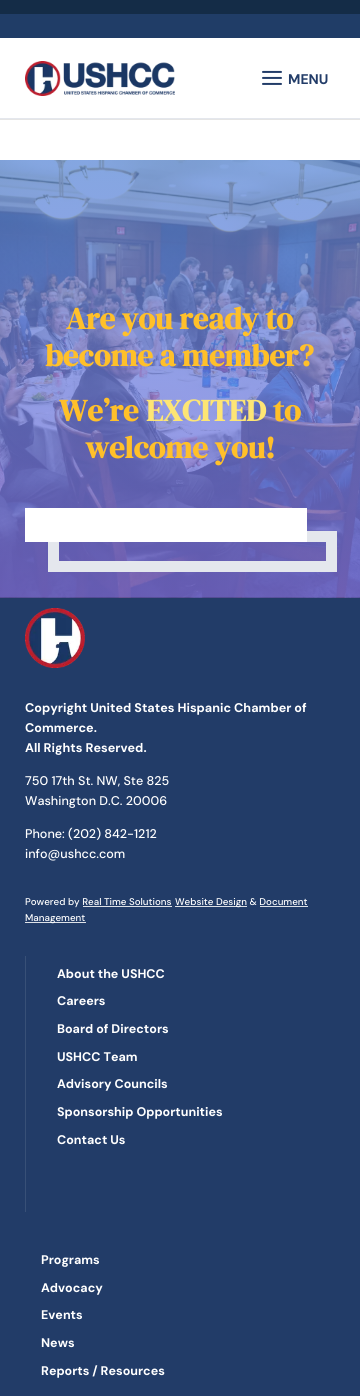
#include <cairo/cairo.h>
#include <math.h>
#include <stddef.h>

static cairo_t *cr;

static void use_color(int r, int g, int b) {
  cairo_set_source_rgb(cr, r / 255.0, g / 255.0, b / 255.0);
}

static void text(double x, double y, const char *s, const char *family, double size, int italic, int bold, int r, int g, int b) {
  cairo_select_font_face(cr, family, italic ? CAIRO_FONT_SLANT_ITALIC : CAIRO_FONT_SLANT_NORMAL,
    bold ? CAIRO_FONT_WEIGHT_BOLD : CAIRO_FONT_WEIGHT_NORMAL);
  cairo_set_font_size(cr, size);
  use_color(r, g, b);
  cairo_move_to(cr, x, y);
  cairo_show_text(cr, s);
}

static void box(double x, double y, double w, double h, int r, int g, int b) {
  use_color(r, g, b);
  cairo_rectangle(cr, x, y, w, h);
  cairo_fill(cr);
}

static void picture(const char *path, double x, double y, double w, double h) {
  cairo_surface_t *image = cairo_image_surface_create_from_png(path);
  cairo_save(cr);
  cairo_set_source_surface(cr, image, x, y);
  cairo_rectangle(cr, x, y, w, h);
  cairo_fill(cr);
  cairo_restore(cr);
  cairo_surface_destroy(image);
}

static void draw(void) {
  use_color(255, 255, 255);
  cairo_paint(cr);
  box(0, 119, 360, 1, 229, 229, 229);
  box(0, 14, 360, 24, 32, 61, 103);
  box(0, 0, 360, 14, 20, 44, 71);
  box(0, 118, 360, 1, 228, 231, 237);
  picture("img_01.png", 25, 61, 150, 35);
  picture("img_02.png", 262, 70, 20, 15);
  picture("img_03.png", 0, 160, 360, 438);
  cairo_rectangle(cr, 53.5, 536.5, 278, 30);
  cairo_set_line_width(cr, 11);
  cairo_stroke(cr);
  box(25, 508, 282, 34, 255, 255, 255);
  box(0, 598, 360, 798, 34, 60, 104);
  picture("img_04.png", 25, 608, 60, 60);
  box(175, 906, 72, 1, 222, 226, 232);
  box(25, 922, 61, 1, 222, 226, 232);
  box(25, 956, 1, 256, 56, 80, 119);
  text(288, 84, "MENU", "DM Sans", 14, 0, 1, 34, 60, 104);
  text(66, 329, "Are you ready to", "DM Serif Display", 30.75, 0, 1, 255, 192, 42);
  text(45, 366, "become a member?", "DM Serif Display", 30.75, 0, 1, 255, 192, 42);
  text(59, 421, "We’re", "DM Serif Display", 30.75, 0, 1, 255, 192, 42);
  text(146, 421, "EXCITED", "DM Serif Display", 30.75, 0, 1, 253, 229, 116);
  text(273, 421, "to", "DM Serif Display", 30.75, 0, 1, 255, 192, 42);
  text(85, 458, "welcome you!", "DM Serif Display", 30.75, 0, 1, 255, 192, 42);
  text(25, 712, "Copyright United States Hispanic Chamber of", "DM Sans", 12.6, 0, 1, 255, 255, 255);
  text(25, 732, "Commerce.", "DM Sans", 12.6, 0, 1, 255, 255, 255);
  text(25, 752, "All Rights Reserved.", "DM Sans", 12.6, 0, 1, 255, 255, 255);
  text(25, 785, "750 17th St. NW, Ste 825", "DM Sans Medium", 12.6, 0, 0, 255, 255, 255);
  text(25, 805, "Washington D.C. 20006", "DM Sans Medium", 12.6, 0, 0, 255, 255, 255);
  text(25, 838, "Phone: (202) 842-1212", "DM Sans Medium", 12.6, 0, 0, 255, 255, 255);
  text(25, 858, "info@ushcc.com", "DM Sans Medium", 12.6, 0, 0, 255, 255, 255);
  text(25, 905, "Powered by Real Time Solutions", "DM Sans Medium", 9.75, 0, 0, 255, 255, 255);
  text(175, 905, "Website Design & Document", "DM Sans Medium", 9.75, 0, 0, 255, 255, 255);
  box(83, 906, 89, 1, 222, 226, 232);
  text(25, 921, "Management", "DM Sans Medium", 9.75, 0, 0, 255, 255, 255);
  box(260, 906, 48, 1, 222, 226, 232);
  text(57, 978, "About the USHCC", "DM Sans", 12.5, 0, 1, 255, 255, 255);
  text(57, 1005, "Careers", "DM Sans", 12.5, 0, 1, 255, 255, 255);
  text(57, 1033, "Board of Directors", "DM Sans", 12.5, 0, 1, 255, 255, 255);
  text(57, 1061, "USHCC Team", "DM Sans", 12.5, 0, 1, 255, 255, 255);
  text(57, 1088, "Advisory Councils", "DM Sans", 12.5, 0, 1, 255, 255, 255);
  text(57, 1116, "Sponsorship Opportunities", "DM Sans", 12.5, 0, 1, 255, 255, 255);
  text(57, 1144, "Contact Us", "DM Sans", 12.5, 0, 1, 255, 255, 255);
  text(41, 1264, "Programs", "DM Sans", 12.5, 0, 1, 255, 255, 255);
  text(41, 1292, "Advocacy", "DM Sans", 12.5, 0, 1, 255, 255, 255);
  text(41, 1319, "Events", "DM Sans", 12.5, 0, 1, 255, 255, 255);
  text(41, 1347, "News", "DM Sans", 12.5, 0, 1, 255, 255, 255);
  text(41, 1375, "Reports / Resources", "DM Sans", 12.5, 0, 1, 255, 255, 255);
}

int main(void) {
  cairo_surface_t *surface = cairo_image_surface_create(CAIRO_FORMAT_RGB24, 360, 1396);
  cr = cairo_create(surface);
  cairo_font_options_t *options = cairo_font_options_create();
  cairo_font_options_set_hint_metrics(options, CAIRO_HINT_METRICS_OFF);
  cairo_font_options_set_hint_style(options, CAIRO_HINT_STYLE_NONE);
  cairo_set_font_options(cr, options);
  cairo_set_miter_limit(cr, 4);
  draw();
  cairo_surface_write_to_png(surface, "out.png");
  cairo_font_options_destroy(options);
  cairo_destroy(cr);
  cairo_surface_destroy(surface);
  return 0;
}
